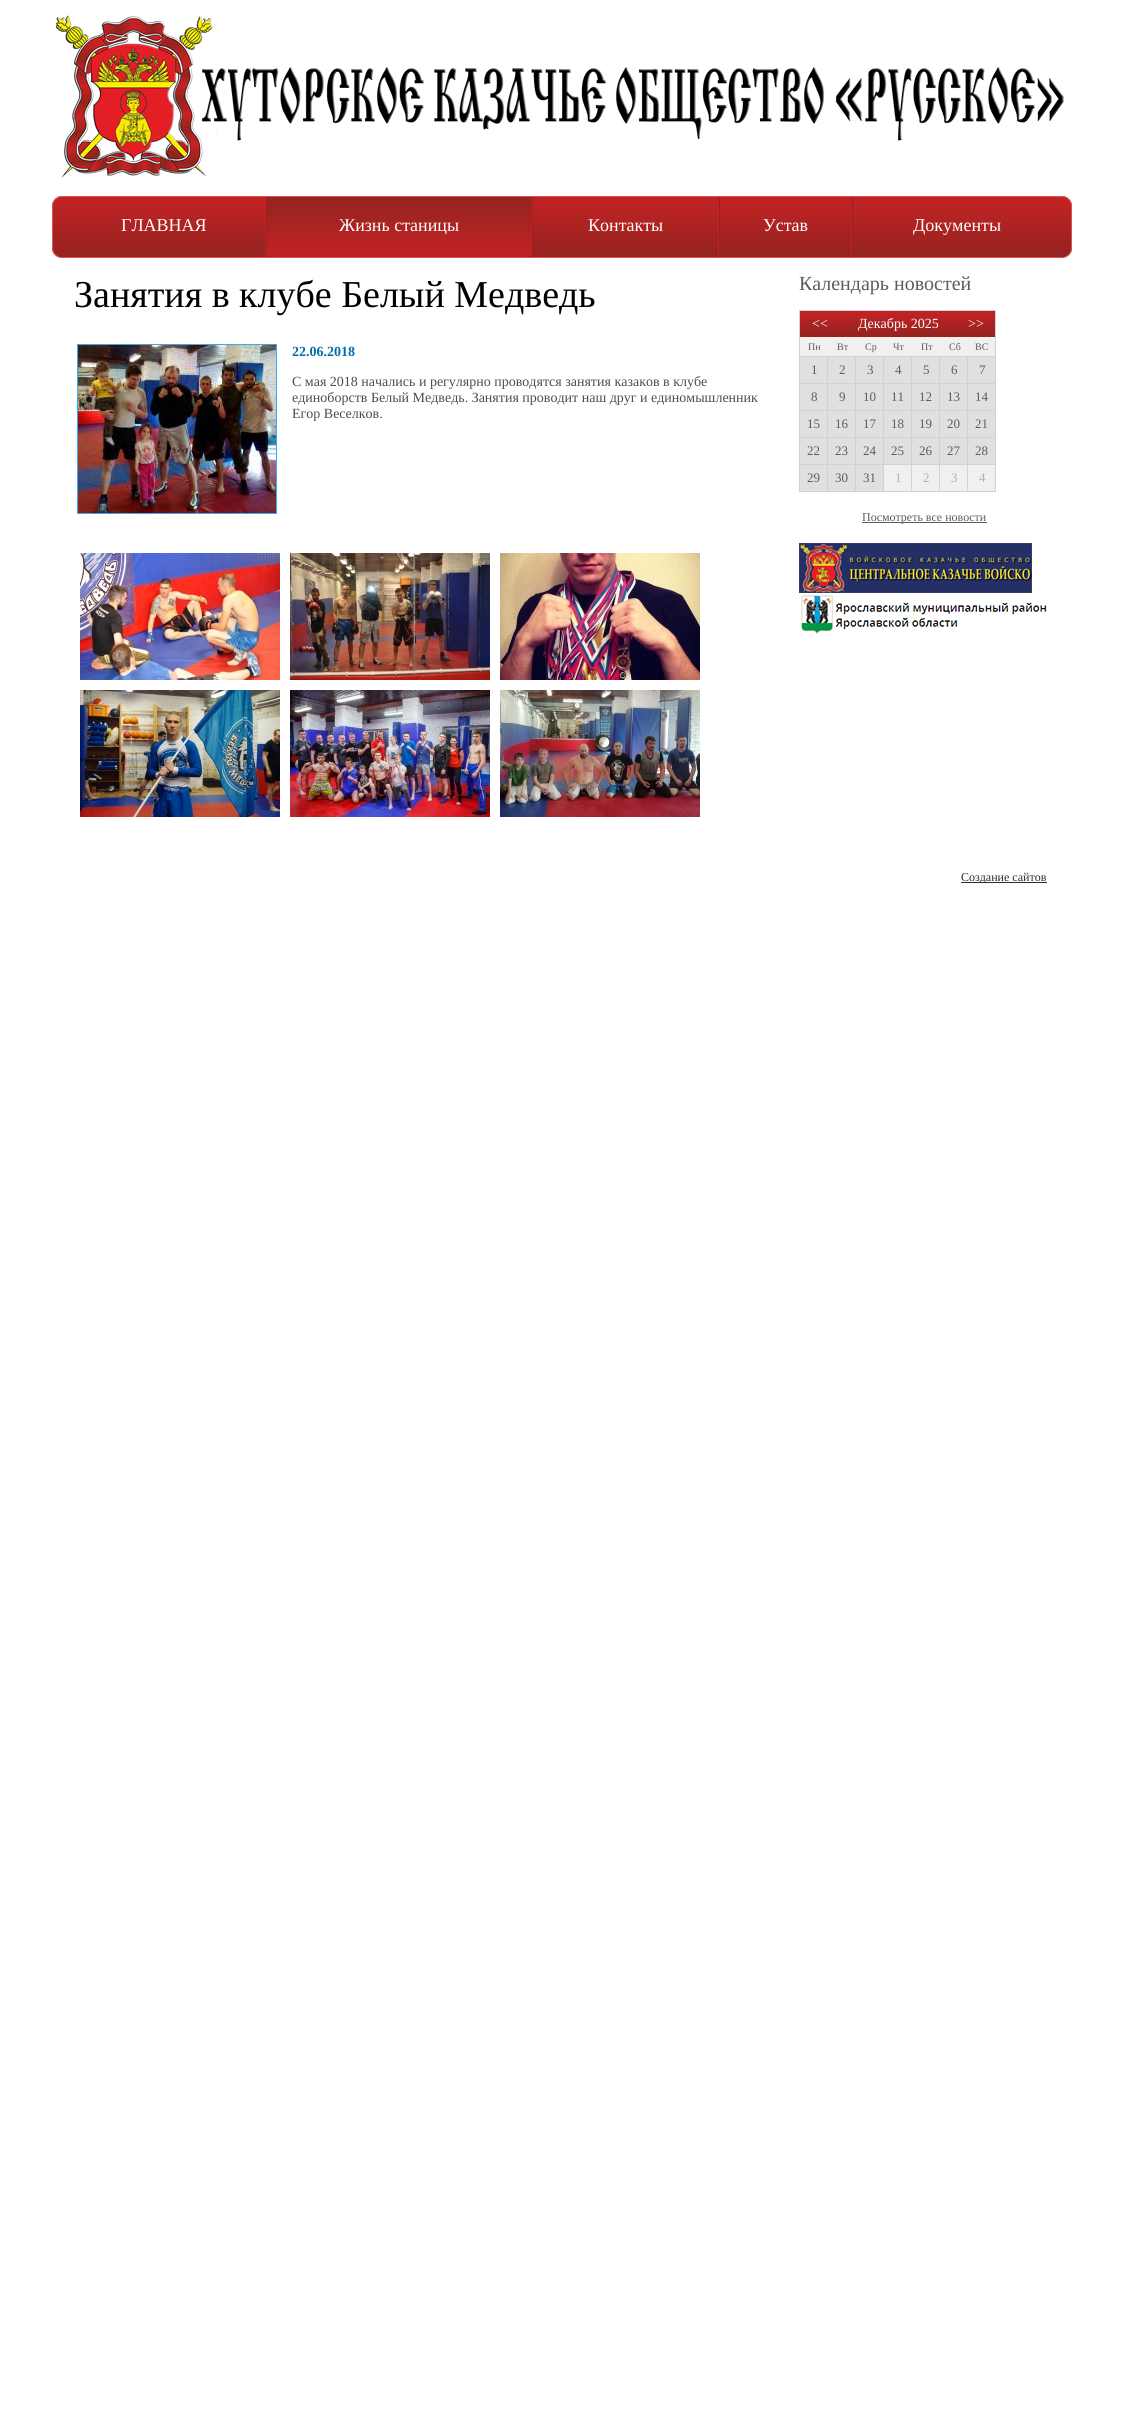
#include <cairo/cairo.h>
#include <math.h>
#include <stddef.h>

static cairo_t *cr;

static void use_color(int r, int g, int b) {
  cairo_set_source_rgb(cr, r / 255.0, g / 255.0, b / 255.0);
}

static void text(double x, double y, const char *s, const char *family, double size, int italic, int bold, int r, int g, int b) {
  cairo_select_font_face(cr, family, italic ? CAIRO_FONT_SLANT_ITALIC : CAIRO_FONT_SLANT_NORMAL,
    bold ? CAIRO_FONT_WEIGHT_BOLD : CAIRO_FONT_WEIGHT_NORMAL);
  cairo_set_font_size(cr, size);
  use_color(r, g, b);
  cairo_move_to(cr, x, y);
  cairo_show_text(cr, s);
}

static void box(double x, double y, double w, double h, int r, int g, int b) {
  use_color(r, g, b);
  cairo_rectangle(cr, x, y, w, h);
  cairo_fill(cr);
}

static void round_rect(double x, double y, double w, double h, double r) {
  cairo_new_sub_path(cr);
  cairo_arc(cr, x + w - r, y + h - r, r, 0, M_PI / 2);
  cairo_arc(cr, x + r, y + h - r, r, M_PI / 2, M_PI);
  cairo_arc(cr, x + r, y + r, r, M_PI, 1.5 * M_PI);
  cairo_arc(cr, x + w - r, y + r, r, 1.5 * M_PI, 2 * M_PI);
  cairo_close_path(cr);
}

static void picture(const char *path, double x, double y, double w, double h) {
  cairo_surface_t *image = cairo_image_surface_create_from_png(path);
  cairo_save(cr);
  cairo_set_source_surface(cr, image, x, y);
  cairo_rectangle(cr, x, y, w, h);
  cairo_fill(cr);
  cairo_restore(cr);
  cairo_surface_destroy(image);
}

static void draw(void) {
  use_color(255, 255, 255);
  cairo_paint(cr);
  picture("img_01.png", 52, 15, 1012, 163);
  picture("img_02.png", 52, 196, 1020, 62);
  round_rect(52.5, 196.5, 1019, 61, 9.5);
  use_color(221, 81, 82);
  cairo_set_line_width(cr, 1);
  cairo_stroke(cr);
  picture("img_03.png", 265, 197, 2, 60);
  picture("img_04.png", 267, 197, 264, 60);
  picture("img_03.png", 531, 197, 2, 60);
  picture("img_03.png", 718, 197, 2, 60);
  picture("img_03.png", 851, 197, 2, 60);
  cairo_rectangle(cr, 77.5, 344.5, 199, 169);
  use_color(58, 168, 244);
  cairo_stroke(cr);
  picture("img_05.png", 78, 345, 198, 168);
  picture("img_06.png", 80, 553, 200, 127);
  picture("img_07.png", 290, 553, 200, 127);
  picture("img_08.png", 500, 553, 200, 127);
  picture("img_09.png", 80, 690, 200, 127);
  picture("img_10.png", 290, 690, 200, 127);
  picture("img_11.png", 500, 690, 200, 127);
  box(799, 310, 197, 1, 211, 209, 209);
  box(799, 310, 1, 182, 211, 209, 209);
  picture("img_12.png", 800, 311, 195, 26);
  box(995, 311, 1, 181, 211, 209, 209);
  box(800, 337, 195, 19, 240, 240, 240);
  box(800, 356, 196, 1, 211, 209, 209);
  box(800, 357, 27, 26, 224, 224, 224);
  box(827, 357, 1, 135, 211, 209, 209);
  box(800, 383, 28, 1, 211, 209, 209);
  box(828, 357, 27, 26, 224, 224, 224);
  box(855, 357, 1, 135, 211, 209, 209);
  box(828, 383, 28, 1, 211, 209, 209);
  box(856, 357, 27, 26, 224, 224, 224);
  box(883, 357, 1, 135, 211, 209, 209);
  box(856, 383, 28, 1, 211, 209, 209);
  box(884, 357, 27, 26, 224, 224, 224);
  box(911, 357, 1, 135, 211, 209, 209);
  box(884, 383, 28, 1, 211, 209, 209);
  box(912, 357, 27, 26, 224, 224, 224);
  box(939, 357, 1, 135, 211, 209, 209);
  box(912, 383, 28, 1, 211, 209, 209);
  box(940, 357, 27, 26, 224, 224, 224);
  box(967, 357, 1, 135, 211, 209, 209);
  box(940, 383, 56, 1, 211, 209, 209);
  box(968, 357, 27, 26, 224, 224, 224);
  box(800, 384, 27, 26, 224, 224, 224);
  box(800, 410, 196, 1, 211, 209, 209);
  box(828, 384, 27, 26, 224, 224, 224);
  box(856, 384, 27, 26, 224, 224, 224);
  box(884, 384, 27, 26, 224, 224, 224);
  box(912, 384, 27, 26, 224, 224, 224);
  box(940, 384, 27, 26, 224, 224, 224);
  box(968, 384, 27, 26, 224, 224, 224);
  box(800, 411, 27, 26, 224, 224, 224);
  box(800, 437, 196, 1, 211, 209, 209);
  box(828, 411, 27, 26, 224, 224, 224);
  box(856, 411, 27, 26, 224, 224, 224);
  box(884, 411, 27, 26, 224, 224, 224);
  box(912, 411, 27, 26, 224, 224, 224);
  box(940, 411, 27, 26, 224, 224, 224);
  box(968, 411, 27, 26, 224, 224, 224);
  box(800, 438, 27, 26, 224, 224, 224);
  box(800, 464, 196, 1, 211, 209, 209);
  box(828, 438, 27, 26, 224, 224, 224);
  box(856, 438, 27, 26, 224, 224, 224);
  box(884, 438, 27, 26, 224, 224, 224);
  box(912, 438, 27, 26, 224, 224, 224);
  box(940, 438, 27, 26, 224, 224, 224);
  box(968, 438, 27, 26, 224, 224, 224);
  box(800, 465, 27, 26, 224, 224, 224);
  box(800, 491, 196, 1, 211, 209, 209);
  box(828, 465, 27, 26, 224, 224, 224);
  box(856, 465, 27, 26, 224, 224, 224);
  box(884, 465, 27, 26, 240, 240, 240);
  box(912, 465, 27, 26, 240, 240, 240);
  box(940, 465, 27, 26, 240, 240, 240);
  box(968, 465, 27, 26, 240, 240, 240);
  box(862, 522, 125, 1, 91, 93, 93);
  picture("img_13.png", 799, 543, 233, 50);
  picture("img_14.png", 801, 594, 246, 40);
  box(961, 882, 86, 1, 46, 46, 46);
  text(121, 231, "ГЛАВНАЯ", "Liberation Serif", 18, 0, 0, 255, 255, 255);
  text(339, 231, "Жизнь станицы", "Liberation Serif", 18, 0, 0, 255, 255, 255);
  text(588, 231, "Контакты", "Liberation Serif", 18, 0, 0, 255, 255, 255);
  text(763, 231, "Устав", "Liberation Serif", 18, 0, 0, 255, 255, 255);
  text(913, 231, "Документы", "Liberation Serif", 18, 0, 0, 255, 255, 255);
  text(74, 307, "Занятия в клубе Белый Медведь", "Liberation Serif", 38, 0, 0, 0, 0, 0);
  text(292, 356, "22.06.2018", "Liberation Serif", 14, 0, 1, 3, 110, 172);
  text(292, 386, "С мая 2018 начались и регулярно проводятся занятия казаков в клубе", "Liberation Serif", 14, 0, 0, 77, 77, 77);
  text(292, 402, "единоборств Белый Медведь. Занятия проводит наш друг и единомышленник", "Liberation Serif", 14, 0, 0, 77, 77, 77);
  text(292, 418, "Егор Веселков.", "Liberation Serif", 14, 0, 0, 77, 77, 77);
  text(799, 290, "Календарь новостей", "Liberation Serif", 20, 0, 0, 91, 93, 93);
  text(812, 328, "<<", "Liberation Serif", 14, 0, 0, 255, 255, 255);
  text(858, 328, "Декабрь 2025", "Liberation Serif", 14, 0, 0, 255, 255, 255);
  text(968, 328, ">>", "Liberation Serif", 14, 0, 0, 255, 255, 255);
  text(808, 350, "Пн", "Liberation Serif", 10, 0, 0, 91, 93, 93);
  text(837, 350, "Вт", "Liberation Serif", 10, 0, 0, 91, 93, 93);
  text(865, 350, "Ср", "Liberation Serif", 10, 0, 0, 91, 93, 93);
  text(893, 350, "Чт", "Liberation Serif", 10, 0, 0, 91, 93, 93);
  text(921, 350, "Пт", "Liberation Serif", 10, 0, 0, 91, 93, 93);
  text(949, 350, "Сб", "Liberation Serif", 10, 0, 0, 91, 93, 93);
  text(975, 350, "ВС", "Liberation Serif", 10, 0, 0, 91, 93, 93);
  text(811, 374, "1", "Liberation Serif", 13, 0, 0, 91, 93, 93);
  text(839, 374, "2", "Liberation Serif", 13, 0, 0, 91, 93, 93);
  text(867, 374, "3", "Liberation Serif", 13, 0, 0, 91, 93, 93);
  text(895, 374, "4", "Liberation Serif", 13, 0, 0, 91, 93, 93);
  text(923, 374, "5", "Liberation Serif", 13, 0, 0, 91, 93, 93);
  text(951, 374, "6", "Liberation Serif", 13, 0, 0, 91, 93, 93);
  text(979, 374, "7", "Liberation Serif", 13, 0, 0, 91, 93, 93);
  text(811, 401, "8", "Liberation Serif", 13, 0, 0, 91, 93, 93);
  text(839, 401, "9", "Liberation Serif", 13, 0, 0, 91, 93, 93);
  text(863, 401, "10", "Liberation Serif", 13, 0, 0, 91, 93, 93);
  text(891, 401, "11", "Liberation Serif", 13, 0, 0, 91, 93, 93);
  text(919, 401, "12", "Liberation Serif", 13, 0, 0, 91, 93, 93);
  text(947, 401, "13", "Liberation Serif", 13, 0, 0, 91, 93, 93);
  text(975, 401, "14", "Liberation Serif", 13, 0, 0, 91, 93, 93);
  text(807, 428, "15", "Liberation Serif", 13, 0, 0, 91, 93, 93);
  text(835, 428, "16", "Liberation Serif", 13, 0, 0, 91, 93, 93);
  text(863, 428, "17", "Liberation Serif", 13, 0, 0, 91, 93, 93);
  text(891, 428, "18", "Liberation Serif", 13, 0, 0, 91, 93, 93);
  text(919, 428, "19", "Liberation Serif", 13, 0, 0, 91, 93, 93);
  text(947, 428, "20", "Liberation Serif", 13, 0, 0, 91, 93, 93);
  text(975, 428, "21", "Liberation Serif", 13, 0, 0, 91, 93, 93);
  text(807, 455, "22", "Liberation Serif", 13, 0, 0, 91, 93, 93);
  text(835, 455, "23", "Liberation Serif", 13, 0, 0, 91, 93, 93);
  text(863, 455, "24", "Liberation Serif", 13, 0, 0, 91, 93, 93);
  text(891, 455, "25", "Liberation Serif", 13, 0, 0, 91, 93, 93);
  text(919, 455, "26", "Liberation Serif", 13, 0, 0, 91, 93, 93);
  text(947, 455, "27", "Liberation Serif", 13, 0, 0, 91, 93, 93);
  text(975, 455, "28", "Liberation Serif", 13, 0, 0, 91, 93, 93);
  text(807, 482, "29", "Liberation Serif", 13, 0, 0, 91, 93, 93);
  text(835, 482, "30", "Liberation Serif", 13, 0, 0, 91, 93, 93);
  text(863, 482, "31", "Liberation Serif", 13, 0, 0, 91, 93, 93);
  text(895, 482, "1", "Liberation Serif", 13, 0, 0, 178, 178, 178);
  text(923, 482, "2", "Liberation Serif", 13, 0, 0, 178, 178, 178);
  text(951, 482, "3", "Liberation Serif", 13, 0, 0, 178, 178, 178);
  text(979, 482, "4", "Liberation Serif", 13, 0, 0, 178, 178, 178);
  text(862, 521, "Посмотреть все новости", "Liberation Serif", 12, 0, 0, 91, 93, 93);
  text(961, 881, "Создание сайтов", "Liberation Serif", 12, 0, 0, 46, 46, 46);
}

int main(void) {
  cairo_surface_t *surface = cairo_image_surface_create(CAIRO_FORMAT_RGB24, 1123, 2426);
  cr = cairo_create(surface);
  cairo_font_options_t *options = cairo_font_options_create();
  cairo_font_options_set_hint_metrics(options, CAIRO_HINT_METRICS_OFF);
  cairo_font_options_set_hint_style(options, CAIRO_HINT_STYLE_NONE);
  cairo_set_font_options(cr, options);
  cairo_set_miter_limit(cr, 4);
  draw();
  cairo_surface_write_to_png(surface, "out.png");
  cairo_font_options_destroy(options);
  cairo_destroy(cr);
  cairo_surface_destroy(surface);
  return 0;
}
